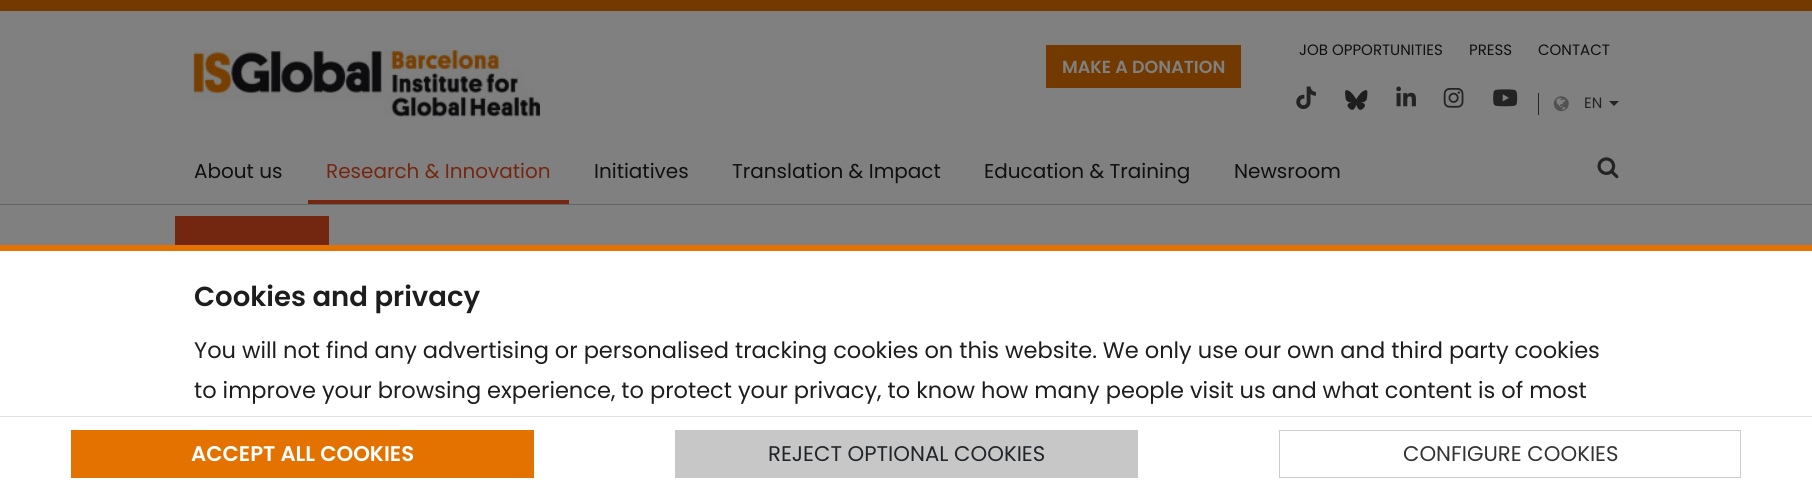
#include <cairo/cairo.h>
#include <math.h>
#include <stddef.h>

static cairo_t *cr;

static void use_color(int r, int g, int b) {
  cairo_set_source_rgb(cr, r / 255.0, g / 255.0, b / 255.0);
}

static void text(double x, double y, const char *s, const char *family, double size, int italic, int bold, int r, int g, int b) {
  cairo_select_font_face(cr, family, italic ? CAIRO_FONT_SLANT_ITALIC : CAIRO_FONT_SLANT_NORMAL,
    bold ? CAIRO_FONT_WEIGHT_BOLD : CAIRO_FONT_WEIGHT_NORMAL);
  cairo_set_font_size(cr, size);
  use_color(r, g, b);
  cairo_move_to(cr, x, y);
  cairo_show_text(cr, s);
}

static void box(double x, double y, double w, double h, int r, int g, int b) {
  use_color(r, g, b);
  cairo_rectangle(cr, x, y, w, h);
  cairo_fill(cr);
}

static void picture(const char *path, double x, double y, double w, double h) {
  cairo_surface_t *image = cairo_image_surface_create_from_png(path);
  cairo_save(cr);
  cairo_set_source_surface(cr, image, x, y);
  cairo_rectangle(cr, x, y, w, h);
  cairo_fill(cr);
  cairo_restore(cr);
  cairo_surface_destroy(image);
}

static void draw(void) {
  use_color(128, 128, 128);
  cairo_paint(cr);
  box(0, 0, 1812, 11, 114, 57, 0);
  picture("img_01.png", 193, 50, 347, 67);
  box(1046, 45, 195, 43, 114, 57, 0);
  picture("img_02.png", 1296, 86, 20, 24);
  picture("img_03.png", 1345, 90, 23, 20);
  picture("img_04.png", 1396, 86, 20, 21);
  picture("img_05.png", 1443, 88, 21, 20);
  picture("img_06.png", 1493, 89, 25, 18);
  box(1538, 93, 1, 22, 35, 35, 35);
  picture("img_07.png", 1553, 96, 16, 16);
  cairo_new_path(cr);
  cairo_move_to(cr, 1609, 101);
  cairo_line_to(cr, 1619, 101);
  cairo_line_to(cr, 1614, 106);
  cairo_close_path(cr);
  cairo_fill(cr);
  box(308, 200, 261, 4, 115, 39, 16);
  box(175, 216, 154, 29, 115, 39, 16);
  box(0, 204, 1812, 1, 100, 100, 100);
  picture("img_08.png", 1597, 157, 22, 22);
  box(0, 251, 1812, 165, 255, 255, 255);
  box(0, 245, 1812, 6, 228, 114, 0);
  box(0, 417, 1812, 72, 255, 255, 255);
  box(0, 416, 1812, 1, 222, 226, 230);
  box(71, 430, 463, 48, 228, 114, 0);
  box(675, 430, 463, 48, 199, 199, 199);
  cairo_rectangle(cr, 1279.5, 430.5, 461, 47);
  use_color(204, 204, 204);
  cairo_set_line_width(cr, 1);
  cairo_stroke(cr);
  text(1062, 73, "MAKE A DONATION", "Poppins SemiBold", 17.5, 0, 0, 128, 128, 128);
  text(1299, 55, "JOB OPPORTUNITIES", "Poppins", 15, 0, 0, 15, 15, 15);
  text(1469, 55, "PRESS", "Poppins", 15, 0, 0, 15, 15, 15);
  text(1538, 55, "CONTACT", "Poppins", 15, 0, 0, 15, 15, 15);
  text(1584, 108, "EN", "Poppins", 15, 0, 0, 35, 35, 35);
  text(194, 178, "About us", "Poppins", 20, 0, 0, 15, 15, 15);
  text(326, 178, "Research & Innovation", "Poppins", 20, 0, 0, 115, 39, 16);
  text(594, 178, "Initiatives", "Poppins", 20, 0, 0, 15, 15, 15);
  text(732, 178, "Translation & Impact", "Poppins", 20, 0, 0, 15, 15, 15);
  text(984, 178, "Education & Training", "Poppins", 20, 0, 0, 15, 15, 15);
  text(1234, 178, "Newsroom", "Poppins", 20, 0, 0, 15, 15, 15);
  text(194, 306, "Cookies and privacy", "Poppins SemiBold", 27.5, 0, 0, 29, 29, 29);
  text(194, 358, "You will not find any advertising or personalised tracking cookies on this website. We only use our own and third party cookies", "Poppins", 22.5, 0, 0, 29, 29, 29);
  text(194, 398, "to improve your browsing experience, to protect your privacy, to know how many people visit us and what content is of most", "Poppins", 22.5, 0, 0, 29, 29, 29);
  text(191, 461, "ACCEPT ALL COOKIES", "Poppins SemiBold", 21.25, 0, 0, 255, 255, 255);
  text(768, 461, "REJECT OPTIONAL COOKIES", "Poppins", 21.25, 0, 0, 33, 37, 41);
  text(1403, 461, "CONFIGURE COOKIES", "Poppins", 21.25, 0, 0, 51, 51, 51);
}

int main(void) {
  cairo_surface_t *surface = cairo_image_surface_create(CAIRO_FORMAT_RGB24, 1812, 489);
  cr = cairo_create(surface);
  cairo_font_options_t *options = cairo_font_options_create();
  cairo_font_options_set_hint_metrics(options, CAIRO_HINT_METRICS_OFF);
  cairo_font_options_set_hint_style(options, CAIRO_HINT_STYLE_NONE);
  cairo_set_font_options(cr, options);
  cairo_set_miter_limit(cr, 4);
  draw();
  cairo_surface_write_to_png(surface, "out.png");
  cairo_font_options_destroy(options);
  cairo_destroy(cr);
  cairo_surface_destroy(surface);
  return 0;
}
